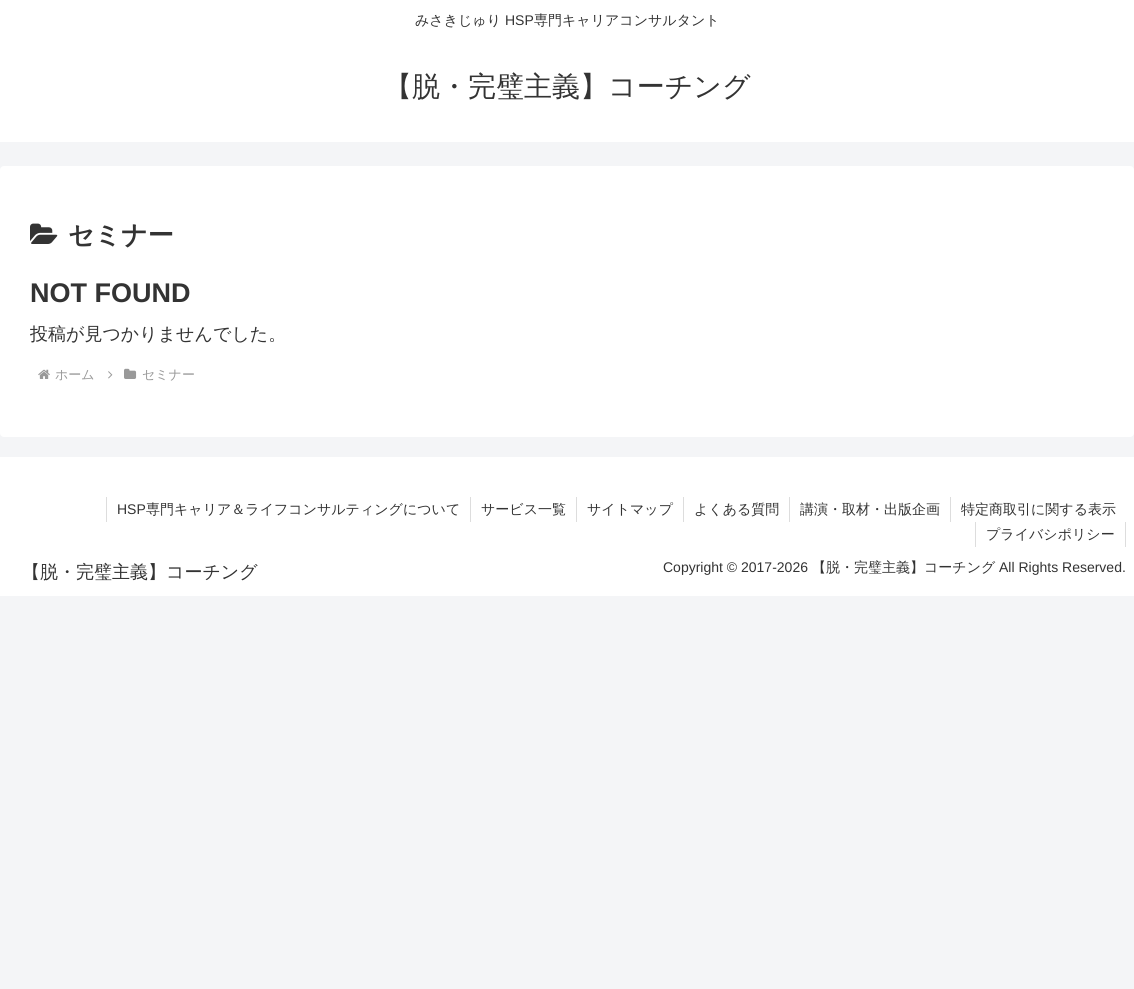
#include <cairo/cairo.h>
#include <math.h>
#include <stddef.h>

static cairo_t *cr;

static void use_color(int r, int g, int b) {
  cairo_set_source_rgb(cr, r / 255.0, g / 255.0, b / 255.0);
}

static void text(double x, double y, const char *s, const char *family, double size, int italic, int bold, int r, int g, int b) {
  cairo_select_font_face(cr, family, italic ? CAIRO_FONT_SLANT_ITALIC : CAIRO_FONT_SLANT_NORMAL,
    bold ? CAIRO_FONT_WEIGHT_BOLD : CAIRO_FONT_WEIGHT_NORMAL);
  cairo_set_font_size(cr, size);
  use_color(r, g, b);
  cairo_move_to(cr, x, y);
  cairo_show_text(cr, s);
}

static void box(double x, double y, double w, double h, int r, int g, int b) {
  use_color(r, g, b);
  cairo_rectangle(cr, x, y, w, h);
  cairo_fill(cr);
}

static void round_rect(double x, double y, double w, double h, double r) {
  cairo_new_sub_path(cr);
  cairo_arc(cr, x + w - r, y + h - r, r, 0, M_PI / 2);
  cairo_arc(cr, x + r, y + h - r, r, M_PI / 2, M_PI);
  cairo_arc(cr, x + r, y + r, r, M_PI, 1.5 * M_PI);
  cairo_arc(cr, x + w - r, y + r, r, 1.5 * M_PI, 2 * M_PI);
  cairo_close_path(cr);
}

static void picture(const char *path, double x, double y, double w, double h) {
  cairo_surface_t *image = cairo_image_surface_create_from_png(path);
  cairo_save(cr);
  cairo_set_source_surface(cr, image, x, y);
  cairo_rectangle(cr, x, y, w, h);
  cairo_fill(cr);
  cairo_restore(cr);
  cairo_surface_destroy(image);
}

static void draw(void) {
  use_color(244, 245, 247);
  cairo_paint(cr);
  box(0, 0, 1134, 142, 255, 255, 255);
  round_rect(0, 166, 1134, 271, 4);
  cairo_fill(cr);
  picture("img_01.png", 30, 223, 28, 21);
  picture("img_02.png", 38, 369, 12, 10);
  picture("img_03.png", 108, 371, 5, 8);
  picture("img_04.png", 124, 368, 13, 11);
  box(0, 457, 1134, 139, 255, 255, 255);
  box(106, 497, 1, 25, 221, 221, 221);
  box(470, 497, 1, 25, 221, 221, 221);
  box(576, 497, 1, 25, 221, 221, 221);
  box(683, 497, 1, 25, 221, 221, 221);
  box(789, 497, 1, 25, 221, 221, 221);
  box(950, 497, 1, 25, 221, 221, 221);
  box(1125, 522, 1, 25, 221, 221, 221);
  box(975, 522, 1, 25, 221, 221, 221);
  text(415, 25, "みさきじゅり", "WenQuanYi Zen Hei Medium", 14, 0, 0, 51, 51, 51);
  text(505, 25, "HSP", "Liberation Sans", 14, 0, 0, 51, 51, 51);
  text(534, 25, "専門キャリアコンサルタント", "WenQuanYi Zen Hei Medium", 14, 0, 0, 51, 51, 51);
  text(384, 96, "【脱・完璧主義】コーチング", "WenQuanYi Zen Hei Medium", 28, 0, 0, 51, 51, 51);
  text(68, 244, "セミナー", "WenQuanYi Zen Hei", 26, 0, 1, 51, 51, 51);
  text(30, 302, "NOT FOUND", "Liberation Sans", 27, 0, 1, 51, 51, 51);
  text(30, 340, "投稿が見つかりませんでした。", "WenQuanYi Zen Hei Medium", 18, 0, 0, 51, 51, 51);
  text(55, 379, "ホーム", "WenQuanYi Zen Hei Medium", 13, 0, 0, 153, 153, 153);
  text(142, 379, "セミナー", "WenQuanYi Zen Hei Medium", 13, 0, 0, 153, 153, 153);
  text(117, 514, "HSP", "Liberation Sans", 14, 0, 0, 51, 51, 51);
  text(146, 514, "専門キャリア＆ライフコンサルティングについて", "WenQuanYi Zen Hei Medium", 14, 0, 0, 51, 51, 51);
  text(481, 514, "サービス一覧", "WenQuanYi Zen Hei Medium", 14, 0, 0, 51, 51, 51);
  text(587, 514, "サイトマップ", "WenQuanYi Zen Hei Medium", 14, 0, 0, 51, 51, 51);
  text(694, 514, "よくある質問", "WenQuanYi Zen Hei Medium", 14, 0, 0, 51, 51, 51);
  text(800, 514, "講演・取材・出版企画", "WenQuanYi Zen Hei Medium", 14, 0, 0, 51, 51, 51);
  text(961, 514, "特定商取引に関する表示", "WenQuanYi Zen Hei Medium", 14, 0, 0, 51, 51, 51);
  text(986, 539, "プライバシポリシー", "WenQuanYi Zen Hei Medium", 14, 0, 0, 51, 51, 51);
  text(663, 572, "Copyright © 2017-2026", "Liberation Sans", 14, 0, 0, 51, 51, 51);
  text(812, 572, "【脱・完璧主義】コーチング", "WenQuanYi Zen Hei Medium", 14, 0, 0, 51, 51, 51);
  text(999, 572, "All Rights Reserved.", "Liberation Sans", 14, 0, 0, 51, 51, 51);
  text(22, 578, "【脱・完璧主義】コーチング", "WenQuanYi Zen Hei Medium", 18, 0, 0, 51, 51, 51);
}

int main(void) {
  cairo_surface_t *surface = cairo_image_surface_create(CAIRO_FORMAT_RGB24, 1134, 989);
  cr = cairo_create(surface);
  cairo_font_options_t *options = cairo_font_options_create();
  cairo_font_options_set_hint_metrics(options, CAIRO_HINT_METRICS_OFF);
  cairo_font_options_set_hint_style(options, CAIRO_HINT_STYLE_NONE);
  cairo_set_font_options(cr, options);
  cairo_set_miter_limit(cr, 4);
  draw();
  cairo_surface_write_to_png(surface, "out.png");
  cairo_font_options_destroy(options);
  cairo_destroy(cr);
  cairo_surface_destroy(surface);
  return 0;
}
